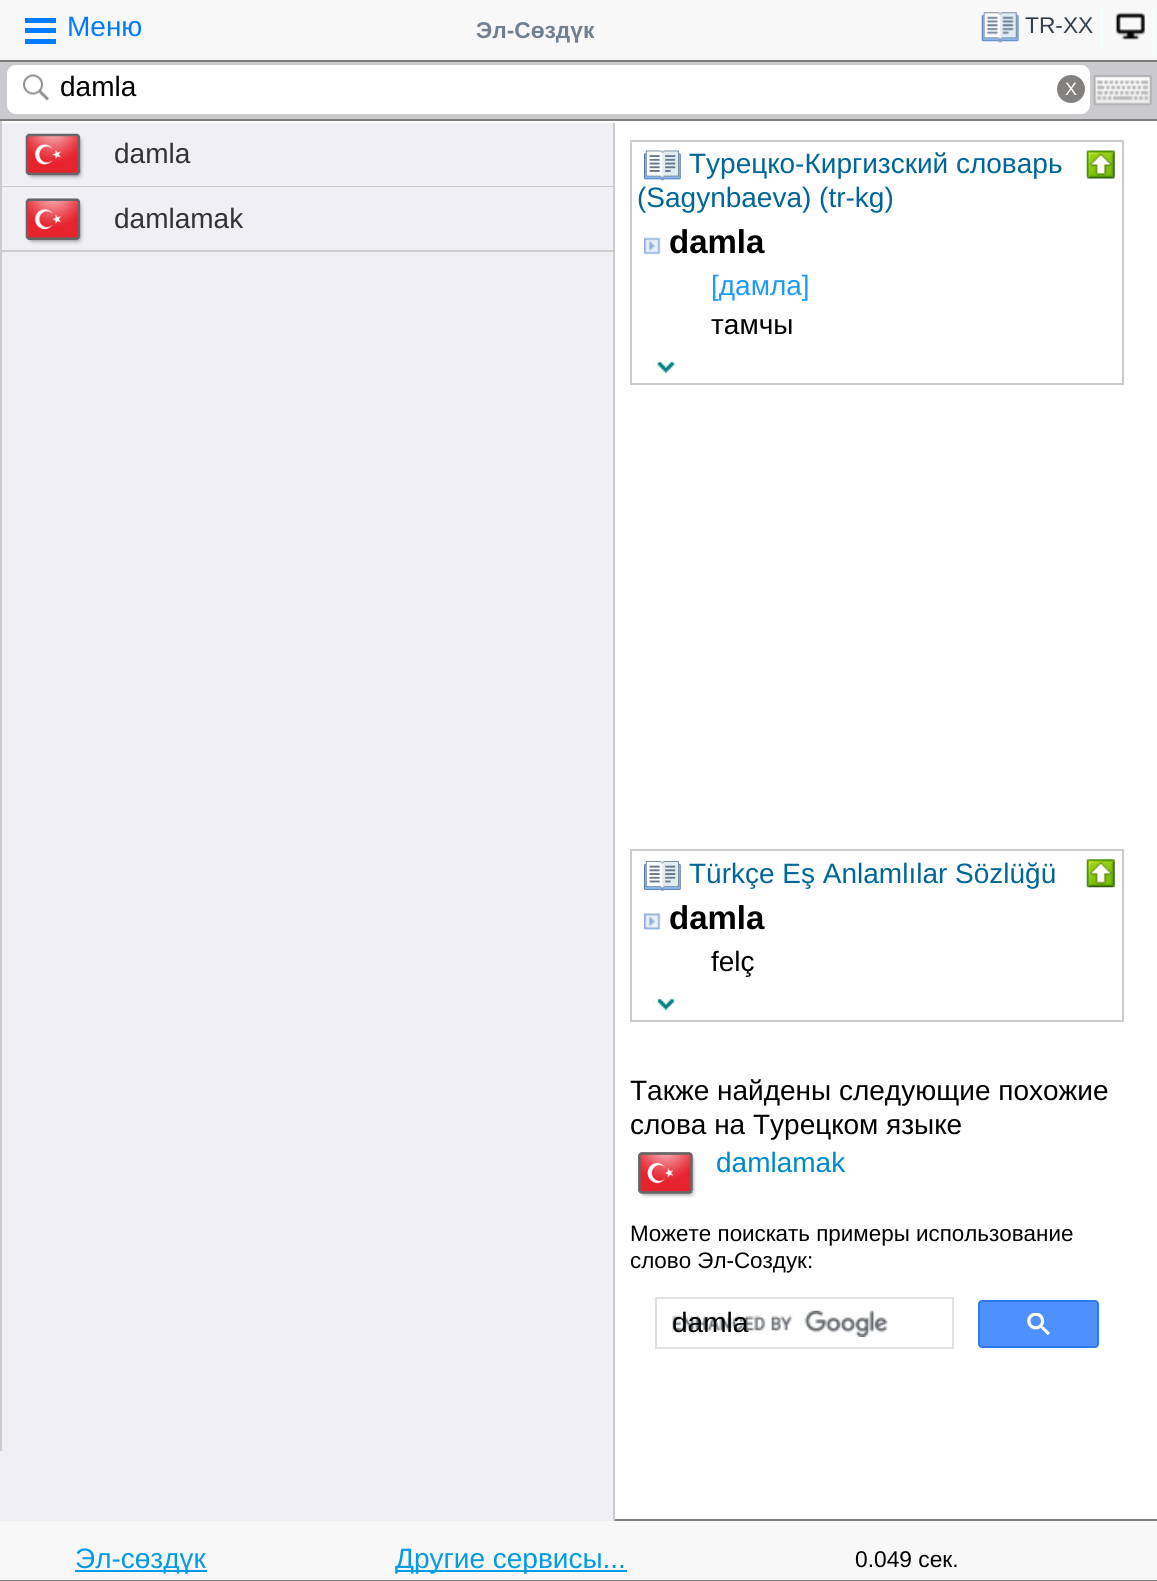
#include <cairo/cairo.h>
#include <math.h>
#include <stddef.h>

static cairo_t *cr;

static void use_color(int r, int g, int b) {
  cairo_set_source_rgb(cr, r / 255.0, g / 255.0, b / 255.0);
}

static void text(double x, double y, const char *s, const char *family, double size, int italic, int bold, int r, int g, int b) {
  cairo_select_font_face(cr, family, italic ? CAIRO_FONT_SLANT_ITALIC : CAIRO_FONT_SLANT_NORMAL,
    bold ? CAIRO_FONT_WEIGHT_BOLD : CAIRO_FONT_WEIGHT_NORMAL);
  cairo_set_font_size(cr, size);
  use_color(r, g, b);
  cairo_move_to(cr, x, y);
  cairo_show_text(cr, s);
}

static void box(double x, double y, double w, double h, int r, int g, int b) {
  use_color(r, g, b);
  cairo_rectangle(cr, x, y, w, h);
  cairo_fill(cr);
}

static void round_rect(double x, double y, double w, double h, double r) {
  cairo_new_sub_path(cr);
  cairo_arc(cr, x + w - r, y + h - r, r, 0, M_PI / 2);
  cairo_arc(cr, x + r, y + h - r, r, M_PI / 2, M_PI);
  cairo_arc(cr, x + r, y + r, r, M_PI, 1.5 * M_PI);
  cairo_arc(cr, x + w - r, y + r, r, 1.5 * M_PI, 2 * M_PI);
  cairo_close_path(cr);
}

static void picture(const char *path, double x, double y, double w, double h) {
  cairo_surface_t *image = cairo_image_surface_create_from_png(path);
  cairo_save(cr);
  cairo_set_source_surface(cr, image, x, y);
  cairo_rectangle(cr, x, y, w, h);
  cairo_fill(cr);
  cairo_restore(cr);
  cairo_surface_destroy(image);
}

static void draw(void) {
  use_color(255, 255, 255);
  cairo_paint(cr);
  box(0, 0, 1157, 60, 248, 248, 248);
  box(0, 60, 1157, 2, 126, 126, 126);
  box(25, 18, 31, 5, 0, 123, 255);
  box(25, 28, 31, 5, 0, 123, 255);
  box(25, 39, 31, 5, 0, 123, 255);
  box(1101, 5, 2, 44, 240, 255, 255);
  picture("img_01.png", 981, 12, 38, 31);
  box(1152, 5, 2, 49, 240, 255, 255);
  picture("img_02.png", 1115, 12, 30, 28);
  box(0, 62, 1157, 57, 201, 201, 206);
  box(0, 119, 1157, 2, 126, 126, 126);
  use_color(255, 255, 255);
  round_rect(7, 65, 1083, 49, 9);
  cairo_fill(cr);
  picture("img_03.png", 23, 74, 26, 27);
  use_color(132, 128, 128);
  cairo_arc(cr, 1071, 89, 14, 0, 2 * M_PI);
  cairo_fill(cr);
  picture("img_04.png", 1093, 75, 59, 31);
  box(0, 123, 613, 1398, 239, 239, 244);
  box(0, 186, 613, 1, 204, 204, 204);
  box(0, 250, 613, 2, 204, 204, 204);
  box(0, 121, 2, 1330, 204, 204, 204);
  box(613, 123, 2, 1398, 204, 204, 204);
  picture("img_05.png", 25, 133, 59, 47);
  picture("img_06.png", 25, 198, 59, 47);
  cairo_rectangle(cr, 631, 141, 492, 243);
  cairo_stroke(cr);
  picture("img_07.png", 644, 150, 37, 31);
  picture("img_08.png", 1086, 150, 29, 29);
  picture("img_09.png", 644, 237, 17, 18);
  picture("img_10.png", 653, 361, 22, 13);
  cairo_rectangle(cr, 631, 850, 492, 171);
  cairo_stroke(cr);
  picture("img_11.png", 644, 861, 37, 30);
  picture("img_12.png", 1086, 859, 29, 29);
  picture("img_13.png", 644, 913, 17, 17);
  picture("img_10.png", 653, 998, 22, 13);
  picture("img_14.png", 638, 1152, 58, 46);
  cairo_rectangle(cr, 656, 1298, 297, 50);
  use_color(223, 225, 229);
  cairo_stroke(cr);
  picture("img_15.png", 672, 1310, 216, 27);
  use_color(77, 144, 254);
  round_rect(979, 1301, 119, 46, 3);
  cairo_fill_preserve(cr);
  use_color(48, 121, 237);
  cairo_stroke(cr);
  picture("img_16.png", 1027, 1313, 23, 22);
  box(0, 1521, 1157, 59, 248, 248, 248);
  box(615, 1519, 542, 2, 126, 126, 126);
  box(0, 1580, 1157, 1, 126, 126, 126);
  box(75, 1570, 132, 2, 3, 155, 229);
  box(396, 1570, 231, 2, 3, 155, 229);
  text(67, 36, "Меню", "Liberation Sans", 28, 0, 0, 0, 123, 255);
  text(476, 38, "Эл-Сөздүк", "Liberation Sans", 22.75, 0, 1, 112, 128, 144);
  text(1025, 33, "TR-XX", "Liberation Sans", 22.75, 0, 0, 51, 64, 77);
  text(60, 96, "damla", "Liberation Sans", 28, 0, 0, 0, 0, 0);
  text(1065, 95, "X", "Liberation Sans", 18, 0, 0, 255, 255, 255);
  text(114, 163, "damla", "Liberation Sans", 28, 0, 0, 51, 51, 51);
  text(114, 228, "damlamak", "Liberation Sans", 28, 0, 0, 51, 51, 51);
  text(689, 173, "Турецко-Киргизский словарь", "Liberation Sans", 28, 0, 0, 0, 102, 153);
  text(637, 207, "(Sagynbaeva) (tr-kg)", "Liberation Sans", 28, 0, 0, 0, 102, 153);
  text(669, 253, "damla", "Liberation Sans", 33, 0, 1, 0, 0, 0);
  text(711, 295, "[дамла]", "Liberation Sans", 28, 0, 0, 29, 155, 245);
  text(711, 334, "тамчы", "Liberation Sans", 28, 0, 0, 0, 0, 0);
  text(689, 883, "Türkçe Eş Anlamlılar Sözlüğü", "Liberation Sans", 28, 0, 0, 0, 102, 153);
  text(669, 929, "damla", "Liberation Sans", 33, 0, 1, 0, 0, 0);
  text(711, 971, "felç", "Liberation Sans", 28, 0, 0, 0, 0, 0);
  text(630, 1100, "Также найдены следующие похожие", "Liberation Sans", 28, 0, 0, 0, 0, 0);
  text(630, 1134, "слова на Турецком языке", "Liberation Sans", 28, 0, 0, 0, 0, 0);
  text(716, 1172, "damlamak", "Liberation Sans", 28, 0, 0, 0, 136, 204);
  text(630, 1241, "Можете поискать примеры использование", "Liberation Sans", 22.4, 0, 0, 0, 0, 0);
  text(630, 1268, "слово Эл-Создук:", "Liberation Sans", 22.4, 0, 0, 0, 0, 0);
  text(672, 1332, "damla", "Liberation Sans", 28, 0, 0, 0, 0, 0);
  text(75, 1568, "Эл-сөздүк", "Liberation Sans", 28, 0, 0, 3, 155, 229);
  text(395, 1568, "Другие сервисы...", "Liberation Sans", 28, 0, 0, 3, 155, 229);
  text(855, 1567, "0.049 сек.", "Liberation Sans", 22.75, 0, 0, 0, 0, 0);
}

int main(void) {
  cairo_surface_t *surface = cairo_image_surface_create(CAIRO_FORMAT_RGB24, 1157, 1581);
  cr = cairo_create(surface);
  cairo_font_options_t *options = cairo_font_options_create();
  cairo_font_options_set_hint_metrics(options, CAIRO_HINT_METRICS_OFF);
  cairo_font_options_set_hint_style(options, CAIRO_HINT_STYLE_NONE);
  cairo_set_font_options(cr, options);
  cairo_set_miter_limit(cr, 4);
  draw();
  cairo_surface_write_to_png(surface, "out.png");
  cairo_font_options_destroy(options);
  cairo_destroy(cr);
  cairo_surface_destroy(surface);
  return 0;
}
